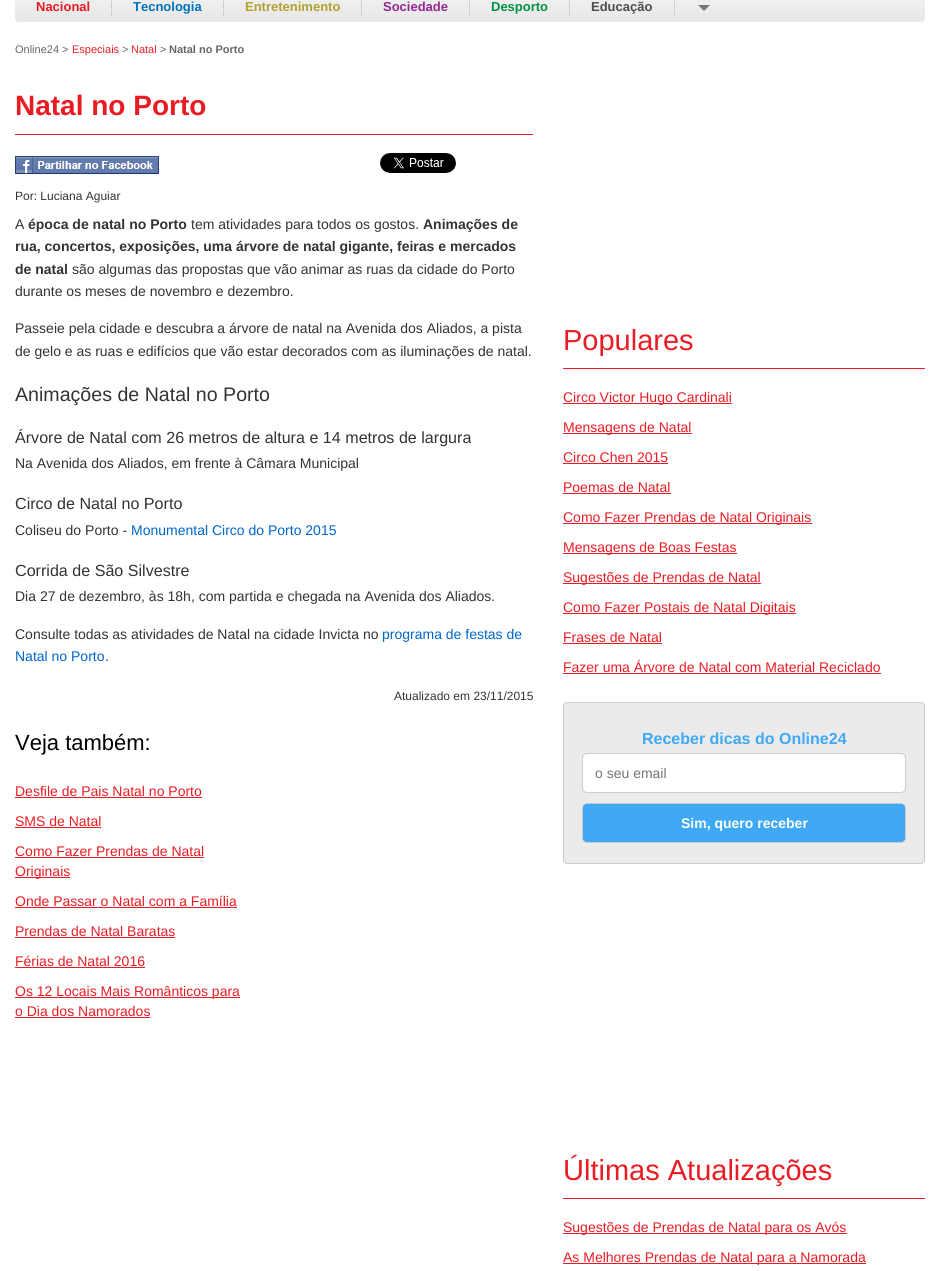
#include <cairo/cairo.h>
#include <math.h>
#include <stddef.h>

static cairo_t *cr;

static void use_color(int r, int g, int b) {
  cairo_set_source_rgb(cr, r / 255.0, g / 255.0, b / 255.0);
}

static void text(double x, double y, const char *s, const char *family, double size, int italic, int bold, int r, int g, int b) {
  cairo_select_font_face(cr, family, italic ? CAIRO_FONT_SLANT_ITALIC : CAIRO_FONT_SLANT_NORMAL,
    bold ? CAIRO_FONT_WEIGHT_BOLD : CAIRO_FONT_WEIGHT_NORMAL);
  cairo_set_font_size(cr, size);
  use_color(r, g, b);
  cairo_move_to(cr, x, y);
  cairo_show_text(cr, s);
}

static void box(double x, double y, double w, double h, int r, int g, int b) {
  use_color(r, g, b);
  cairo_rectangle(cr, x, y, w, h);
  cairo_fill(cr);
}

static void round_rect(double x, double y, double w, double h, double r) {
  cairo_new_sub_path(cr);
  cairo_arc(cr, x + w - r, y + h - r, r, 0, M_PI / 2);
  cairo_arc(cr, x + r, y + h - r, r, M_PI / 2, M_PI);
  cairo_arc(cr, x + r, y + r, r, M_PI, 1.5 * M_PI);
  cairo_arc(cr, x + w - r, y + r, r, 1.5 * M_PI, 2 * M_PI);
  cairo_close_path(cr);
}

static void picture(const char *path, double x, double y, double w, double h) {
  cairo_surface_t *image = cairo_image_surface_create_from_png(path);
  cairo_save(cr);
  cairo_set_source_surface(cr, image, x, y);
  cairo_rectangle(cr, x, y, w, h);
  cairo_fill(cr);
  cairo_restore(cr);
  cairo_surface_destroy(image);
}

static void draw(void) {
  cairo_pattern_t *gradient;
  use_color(255, 255, 255);
  cairo_paint(cr);
  gradient = cairo_pattern_create_linear(470, -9, 470, 22);
  cairo_pattern_add_color_stop_rgba(gradient, 0, 0.949, 0.949, 0.949, 1);
  cairo_pattern_add_color_stop_rgba(gradient, 1, 0.906, 0.906, 0.906, 1);
  cairo_set_source(cr, gradient);
  cairo_pattern_destroy(gradient);
  round_rect(15, -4, 910, 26, 4);
  cairo_fill(cr);
  cairo_new_path(cr);
  cairo_move_to(cr, 111.5, -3);
  cairo_line_to(cr, 111.5, 17);
  use_color(181, 181, 181);
  cairo_set_line_width(cr, 1);
  cairo_set_dash(cr, (double[]){1, 1}, 2, 0);
  cairo_stroke(cr);
  cairo_new_path(cr);
  cairo_move_to(cr, 223.5, -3);
  cairo_line_to(cr, 223.5, 17);
  cairo_stroke(cr);
  cairo_new_path(cr);
  cairo_move_to(cr, 361.5, -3);
  cairo_line_to(cr, 361.5, 17);
  cairo_stroke(cr);
  cairo_new_path(cr);
  cairo_move_to(cr, 469.5, -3);
  cairo_line_to(cr, 469.5, 17);
  cairo_stroke(cr);
  cairo_new_path(cr);
  cairo_move_to(cr, 569.5, -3);
  cairo_line_to(cr, 569.5, 17);
  cairo_stroke(cr);
  cairo_new_path(cr);
  cairo_move_to(cr, 674.5, -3);
  cairo_line_to(cr, 674.5, 17);
  cairo_stroke(cr);
  use_color(119, 119, 119);
  cairo_new_path(cr);
  cairo_move_to(cr, 698, 5);
  cairo_line_to(cr, 710, 5);
  cairo_line_to(cr, 704, 11);
  cairo_close_path(cr);
  cairo_fill(cr);
  box(15, 134, 518, 1, 234, 28, 35);
  picture("img_01.png", 15, 156, 144, 18);
  picture("img_02.png", 380, 153, 76, 20);
  box(15, 797, 187, 1, 234, 28, 35);
  box(15, 827, 86, 1, 234, 28, 35);
  box(15, 857, 189, 1, 234, 28, 35);
  box(15, 877, 55, 1, 234, 28, 35);
  box(15, 907, 222, 1, 234, 28, 35);
  box(15, 937, 160, 1, 234, 28, 35);
  box(15, 967, 130, 1, 234, 28, 35);
  box(15, 997, 225, 1, 234, 28, 35);
  box(15, 1017, 135, 1, 234, 28, 35);
  box(563, 368, 362, 1, 234, 28, 35);
  box(563, 403, 169, 1, 234, 28, 35);
  box(563, 433, 129, 1, 234, 28, 35);
  box(563, 463, 105, 1, 234, 28, 35);
  box(563, 493, 108, 1, 234, 28, 35);
  box(563, 523, 249, 1, 234, 28, 35);
  box(563, 553, 174, 1, 234, 28, 35);
  box(563, 583, 198, 1, 234, 28, 35);
  box(563, 613, 233, 1, 234, 28, 35);
  box(563, 643, 99, 1, 234, 28, 35);
  box(563, 673, 318, 1, 234, 28, 35);
  use_color(235, 235, 235);
  round_rect(563.5, 702.5, 361, 161, 3.5);
  cairo_fill_preserve(cr);
  use_color(204, 204, 204);
  cairo_set_dash(cr, NULL, 0, 0);
  cairo_stroke(cr);
  use_color(255, 255, 255);
  round_rect(582.5, 753.5, 323, 39, 4.5);
  cairo_fill_preserve(cr);
  use_color(204, 204, 204);
  cairo_stroke(cr);
  use_color(63, 169, 245);
  round_rect(582.5, 803.5, 323, 39, 4.5);
  cairo_fill_preserve(cr);
  use_color(204, 204, 204);
  cairo_stroke(cr);
  box(563, 1198, 362, 1, 234, 28, 35);
  box(563, 1233, 284, 1, 234, 28, 35);
  box(563, 1263, 303, 1, 234, 28, 35);
  text(36, 11, "Nacional", "Liberation Sans", 13, 0, 1, 234, 28, 35);
  text(133, 11, "Tecnologia", "Liberation Sans", 13, 0, 1, 0, 113, 188);
  text(245, 11, "Entretenimento", "Liberation Sans", 13, 0, 1, 179, 160, 48);
  text(383, 11, "Sociedade", "Liberation Sans", 13, 0, 1, 147, 39, 143);
  text(491, 11, "Desporto", "Liberation Sans", 13, 0, 1, 0, 146, 69);
  text(591, 11, "Educação", "Liberation Sans", 13, 0, 1, 77, 77, 77);
  text(15, 53, "Online24 >", "Liberation Sans", 11, 0, 0, 102, 102, 102);
  text(72, 53, "Especiais", "Liberation Sans", 11, 0, 0, 234, 28, 35);
  text(122, 53, ">", "Liberation Sans", 11, 0, 0, 102, 102, 102);
  text(131, 53, "Natal", "Liberation Sans", 11, 0, 0, 234, 28, 35);
  text(160, 53, ">", "Liberation Sans", 11, 0, 0, 102, 102, 102);
  text(169, 53, "Natal no Porto", "Liberation Sans", 11, 0, 1, 102, 102, 102);
  text(15, 115, "Natal no Porto", "Liberation Sans", 28, 0, 1, 234, 28, 35);
  text(15, 200, "Por: Luciana Aguiar", "Liberation Sans", 12, 0, 0, 51, 51, 51);
  text(15, 229, "A", "Liberation Sans", 14, 0, 0, 51, 51, 51);
  text(28, 229, "época de natal no Porto", "Liberation Sans", 14, 0, 1, 51, 51, 51);
  text(191, 229, "tem atividades para todos os gostos.", "Liberation Sans", 14, 0, 0, 51, 51, 51);
  text(423, 229, "Animações de", "Liberation Sans", 14, 0, 1, 51, 51, 51);
  text(15, 251, "rua, concertos, exposições, uma árvore de natal gigante, feiras e mercados", "Liberation Sans", 14, 0, 1, 51, 51, 51);
  text(15, 274, "de natal", "Liberation Sans", 14, 0, 1, 51, 51, 51);
  text(72, 274, "são algumas das propostas que vão animar as ruas da cidade do Porto", "Liberation Sans", 14, 0, 0, 51, 51, 51);
  text(15, 296, "durante os meses de novembro e dezembro.", "Liberation Sans", 14, 0, 0, 51, 51, 51);
  text(15, 333, "Passeie pela cidade e descubra a árvore de natal na Avenida dos Aliados, a pista", "Liberation Sans", 14, 0, 0, 51, 51, 51);
  text(15, 356, "de gelo e as ruas e edifícios que vão estar decorados com as iluminações de natal.", "Liberation Sans", 14, 0, 0, 51, 51, 51);
  text(15, 401, "Animações de Natal no Porto", "Liberation Sans", 19.6, 0, 0, 51, 51, 51);
  text(15, 443, "Árvore de Natal com 26 metros de altura e 14 metros de largura", "Liberation Sans", 16.1, 0, 0, 51, 51, 51);
  text(15, 468, "Na Avenida dos Aliados, em frente à Câmara Municipal", "Liberation Sans", 14, 0, 0, 51, 51, 51);
  text(15, 509, "Circo de Natal no Porto", "Liberation Sans", 16.1, 0, 0, 51, 51, 51);
  text(15, 535, "Coliseu do Porto -", "Liberation Sans", 14, 0, 0, 51, 51, 51);
  text(131, 535, "Monumental Circo do Porto 2015", "Liberation Sans", 14, 0, 0, 0, 102, 204);
  text(15, 576, "Corrida de São Silvestre", "Liberation Sans", 16.1, 0, 0, 51, 51, 51);
  text(15, 601, "Dia 27 de dezembro, às 18h, com partida e chegada na Avenida dos Aliados.", "Liberation Sans", 14, 0, 0, 51, 51, 51);
  text(15, 639, "Consulte todas as atividades de Natal na cidade Invicta no", "Liberation Sans", 14, 0, 0, 51, 51, 51);
  text(382, 639, "programa de festas de", "Liberation Sans", 14, 0, 0, 0, 102, 204);
  text(15, 661, "Natal no Porto", "Liberation Sans", 14, 0, 0, 0, 102, 204);
  text(105, 661, ".", "Liberation Sans", 14, 0, 0, 51, 51, 51);
  text(394, 700, "Atualizado em 23/11/2015", "Liberation Sans", 12, 0, 0, 51, 51, 51);
  text(15, 750, "Veja também:", "Liberation Sans", 22, 0, 0, 0, 0, 0);
  text(15, 796, "Desfile de Pais Natal no Porto", "Liberation Sans", 14, 0, 0, 234, 28, 35);
  text(15, 826, "SMS de Natal", "Liberation Sans", 14, 0, 0, 234, 28, 35);
  text(15, 856, "Como Fazer Prendas de Natal", "Liberation Sans", 14, 0, 0, 234, 28, 35);
  text(15, 876, "Originais", "Liberation Sans", 14, 0, 0, 234, 28, 35);
  text(15, 906, "Onde Passar o Natal com a Família", "Liberation Sans", 14, 0, 0, 234, 28, 35);
  text(15, 936, "Prendas de Natal Baratas", "Liberation Sans", 14, 0, 0, 234, 28, 35);
  text(15, 966, "Férias de Natal 2016", "Liberation Sans", 14, 0, 0, 234, 28, 35);
  text(15, 996, "Os 12 Locais Mais Românticos para", "Liberation Sans", 14, 0, 0, 234, 28, 35);
  text(15, 1016, "o Dia dos Namorados", "Liberation Sans", 14, 0, 0, 234, 28, 35);
  text(563, 350, "Populares", "Liberation Sans", 29, 0, 0, 234, 28, 35);
  text(563, 402, "Circo Victor Hugo Cardinali", "Liberation Sans", 14, 0, 0, 234, 28, 35);
  text(563, 432, "Mensagens de Natal", "Liberation Sans", 14, 0, 0, 234, 28, 35);
  text(563, 462, "Circo Chen 2015", "Liberation Sans", 14, 0, 0, 234, 28, 35);
  text(563, 492, "Poemas de Natal", "Liberation Sans", 14, 0, 0, 234, 28, 35);
  text(563, 522, "Como Fazer Prendas de Natal Originais", "Liberation Sans", 14, 0, 0, 234, 28, 35);
  text(563, 552, "Mensagens de Boas Festas", "Liberation Sans", 14, 0, 0, 234, 28, 35);
  text(563, 582, "Sugestões de Prendas de Natal", "Liberation Sans", 14, 0, 0, 234, 28, 35);
  text(563, 612, "Como Fazer Postais de Natal Digitais", "Liberation Sans", 14, 0, 0, 234, 28, 35);
  text(563, 642, "Frases de Natal", "Liberation Sans", 14, 0, 0, 234, 28, 35);
  text(563, 672, "Fazer uma Árvore de Natal com Material Reciclado", "Liberation Sans", 14, 0, 0, 234, 28, 35);
  text(642, 744, "Receber dicas do Online24", "Liberation Sans", 16, 0, 1, 63, 169, 245);
  text(595, 778, "o seu email", "Liberation Sans", 14, 0, 0, 117, 117, 117);
  text(681, 828, "Sim, quero receber", "Liberation Sans", 14, 0, 1, 255, 255, 255);
  text(563, 1180, "Últimas Atualizações", "Liberation Sans", 29, 0, 0, 234, 28, 35);
  text(563, 1232, "Sugestões de Prendas de Natal para os Avós", "Liberation Sans", 14, 0, 0, 234, 28, 35);
  text(563, 1262, "As Melhores Prendas de Natal para a Namorada", "Liberation Sans", 14, 0, 0, 234, 28, 35);
}

int main(void) {
  cairo_surface_t *surface = cairo_image_surface_create(CAIRO_FORMAT_RGB24, 940, 1271);
  cr = cairo_create(surface);
  cairo_font_options_t *options = cairo_font_options_create();
  cairo_font_options_set_hint_metrics(options, CAIRO_HINT_METRICS_OFF);
  cairo_font_options_set_hint_style(options, CAIRO_HINT_STYLE_NONE);
  cairo_set_font_options(cr, options);
  cairo_set_miter_limit(cr, 4);
  draw();
  cairo_surface_write_to_png(surface, "out.png");
  cairo_font_options_destroy(options);
  cairo_destroy(cr);
  cairo_surface_destroy(surface);
  return 0;
}
